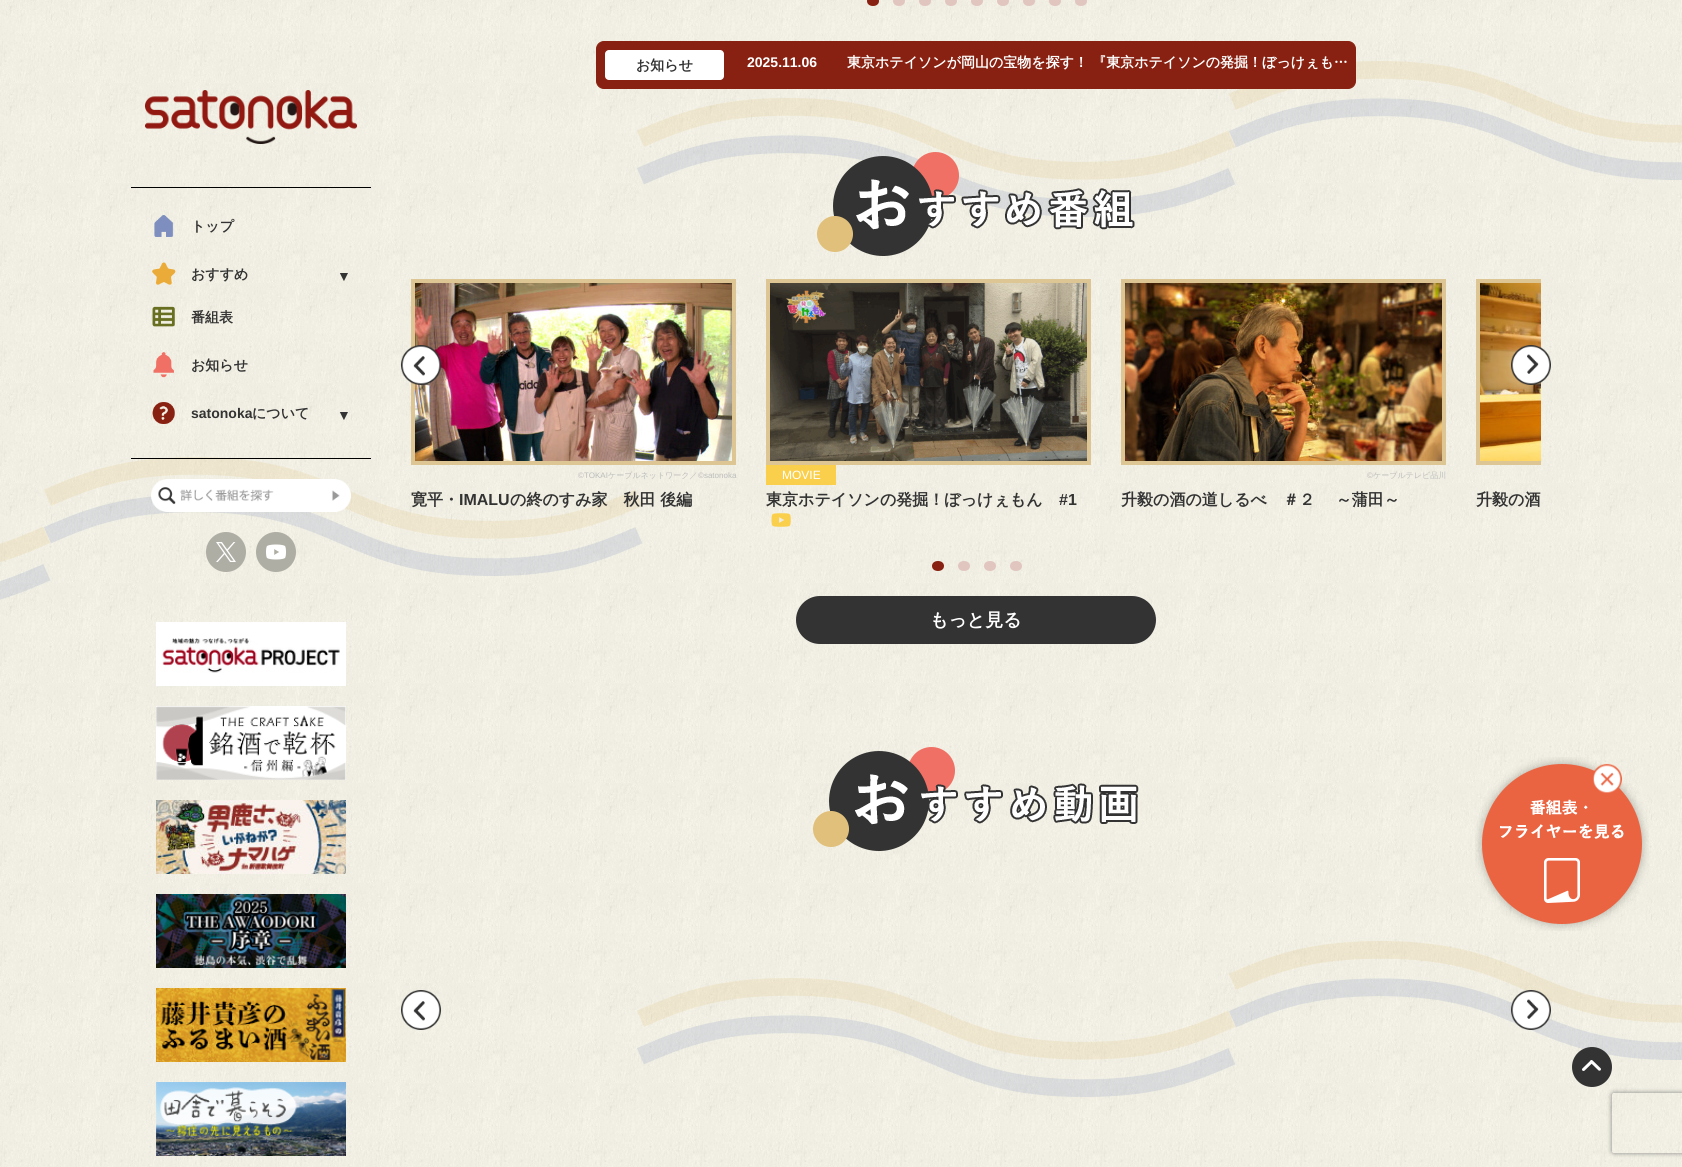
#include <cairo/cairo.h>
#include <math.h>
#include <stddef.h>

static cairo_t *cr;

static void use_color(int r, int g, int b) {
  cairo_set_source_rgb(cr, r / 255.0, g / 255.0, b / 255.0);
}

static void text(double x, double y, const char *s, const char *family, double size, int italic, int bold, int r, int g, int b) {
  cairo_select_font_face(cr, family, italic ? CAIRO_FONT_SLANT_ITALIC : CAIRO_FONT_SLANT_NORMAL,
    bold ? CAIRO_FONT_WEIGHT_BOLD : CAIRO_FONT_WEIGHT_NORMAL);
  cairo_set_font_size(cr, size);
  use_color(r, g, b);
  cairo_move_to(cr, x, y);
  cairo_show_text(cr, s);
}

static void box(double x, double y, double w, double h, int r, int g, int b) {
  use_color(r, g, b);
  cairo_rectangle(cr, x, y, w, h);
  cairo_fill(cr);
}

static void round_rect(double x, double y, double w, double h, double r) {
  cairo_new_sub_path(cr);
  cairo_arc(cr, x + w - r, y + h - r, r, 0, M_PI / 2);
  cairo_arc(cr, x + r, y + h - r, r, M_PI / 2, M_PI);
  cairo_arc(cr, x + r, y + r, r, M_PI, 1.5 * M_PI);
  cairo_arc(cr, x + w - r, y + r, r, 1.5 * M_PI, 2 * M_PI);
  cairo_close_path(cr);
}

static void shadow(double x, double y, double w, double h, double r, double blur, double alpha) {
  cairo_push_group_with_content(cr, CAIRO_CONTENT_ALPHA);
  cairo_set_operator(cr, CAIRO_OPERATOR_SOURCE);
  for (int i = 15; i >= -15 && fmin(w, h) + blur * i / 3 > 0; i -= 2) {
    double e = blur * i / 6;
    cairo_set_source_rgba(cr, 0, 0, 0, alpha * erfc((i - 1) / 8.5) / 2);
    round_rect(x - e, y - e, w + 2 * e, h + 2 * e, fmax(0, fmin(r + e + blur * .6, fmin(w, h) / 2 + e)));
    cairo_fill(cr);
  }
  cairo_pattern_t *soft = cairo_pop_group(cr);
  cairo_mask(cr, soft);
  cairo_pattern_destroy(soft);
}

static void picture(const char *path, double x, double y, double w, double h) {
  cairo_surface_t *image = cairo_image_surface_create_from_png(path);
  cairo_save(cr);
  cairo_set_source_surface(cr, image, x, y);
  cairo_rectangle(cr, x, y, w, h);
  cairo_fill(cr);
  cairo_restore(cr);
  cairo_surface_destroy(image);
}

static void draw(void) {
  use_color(255, 255, 255);
  cairo_paint(cr);
  picture("img_01.png", 0, 0, 1682, 1167);
  picture("img_30.png", 0, 61, 1682, 1036);
  picture("img_02.png", 145, 90, 212, 54);
  box(131, 187, 240, 1, 0, 0, 0);
  picture("img_03.png", 154, 215, 20, 22);
  picture("img_04.png", 152, 262, 24, 23);
  picture("img_05.png", 152, 306, 23, 21);
  picture("img_06.png", 153, 352, 21, 26);
  picture("img_07.png", 152, 402, 23, 22);
  box(131, 458, 240, 1, 0, 0, 0);
  picture("img_08.png", 151, 479, 200, 33);
  picture("img_09.png", 206, 532, 40, 40);
  picture("img_10.png", 256, 532, 40, 40);
  box(156, 622, 190, 64, 255, 255, 255);
  picture("img_11.png", 162, 638, 178, 35);
  box(156, 706, 190, 74, 255, 255, 255);
  picture("img_12.png", 156, 706, 190, 74);
  picture("img_13.png", 156, 800, 190, 74);
  picture("img_14.png", 156, 894, 190, 74);
  picture("img_15.png", 156, 988, 190, 74);
  picture("img_16.png", 156, 1082, 190, 74);
  use_color(136, 33, 17);
  cairo_new_path(cr);
  cairo_move_to(cr, 873, -4);
  cairo_curve_to(cr, 876.5, -4, 879, -2, 879, 1);
  cairo_curve_to(cr, 879, 4, 876.5, 6, 873, 6);
  cairo_curve_to(cr, 869.5, 6, 867, 4, 867, 1);
  cairo_curve_to(cr, 867, -2, 869.5, -4, 873, -4);
  cairo_close_path(cr);
  cairo_fill(cr);
  use_color(225, 198, 191);
  cairo_new_path(cr);
  cairo_move_to(cr, 899, -4);
  cairo_curve_to(cr, 902.5, -4, 905, -2, 905, 1);
  cairo_curve_to(cr, 905, 4, 902.5, 6, 899, 6);
  cairo_curve_to(cr, 895.5, 6, 893, 4, 893, 1);
  cairo_curve_to(cr, 893, -2, 895.5, -4, 899, -4);
  cairo_close_path(cr);
  cairo_fill(cr);
  cairo_new_path(cr);
  cairo_move_to(cr, 925, -4);
  cairo_curve_to(cr, 928.5, -4, 931, -2, 931, 1);
  cairo_curve_to(cr, 931, 4, 928.5, 6, 925, 6);
  cairo_curve_to(cr, 921.5, 6, 919, 4, 919, 1);
  cairo_curve_to(cr, 919, -2, 921.5, -4, 925, -4);
  cairo_close_path(cr);
  cairo_fill(cr);
  cairo_new_path(cr);
  cairo_move_to(cr, 951, -4);
  cairo_curve_to(cr, 954.5, -4, 957, -2, 957, 1);
  cairo_curve_to(cr, 957, 4, 954.5, 6, 951, 6);
  cairo_curve_to(cr, 947.5, 6, 945, 4, 945, 1);
  cairo_curve_to(cr, 945, -2, 947.5, -4, 951, -4);
  cairo_close_path(cr);
  cairo_fill(cr);
  cairo_new_path(cr);
  cairo_move_to(cr, 977, -4);
  cairo_curve_to(cr, 980.5, -4, 983, -2, 983, 1);
  cairo_curve_to(cr, 983, 4, 980.5, 6, 977, 6);
  cairo_curve_to(cr, 973.5, 6, 971, 4, 971, 1);
  cairo_curve_to(cr, 971, -2, 973.5, -4, 977, -4);
  cairo_close_path(cr);
  cairo_fill(cr);
  cairo_new_path(cr);
  cairo_move_to(cr, 1003, -4);
  cairo_curve_to(cr, 1006.5, -4, 1009, -2, 1009, 1);
  cairo_curve_to(cr, 1009, 4, 1006.5, 6, 1003, 6);
  cairo_curve_to(cr, 999.5, 6, 997, 4, 997, 1);
  cairo_curve_to(cr, 997, -2, 999.5, -4, 1003, -4);
  cairo_close_path(cr);
  cairo_fill(cr);
  cairo_new_path(cr);
  cairo_move_to(cr, 1029, -4);
  cairo_curve_to(cr, 1032.5, -4, 1035, -2, 1035, 1);
  cairo_curve_to(cr, 1035, 4, 1032.5, 6, 1029, 6);
  cairo_curve_to(cr, 1025.5, 6, 1023, 4, 1023, 1);
  cairo_curve_to(cr, 1023, -2, 1025.5, -4, 1029, -4);
  cairo_close_path(cr);
  cairo_fill(cr);
  cairo_new_path(cr);
  cairo_move_to(cr, 1055, -4);
  cairo_curve_to(cr, 1058.5, -4, 1061, -2, 1061, 1);
  cairo_curve_to(cr, 1061, 4, 1058.5, 6, 1055, 6);
  cairo_curve_to(cr, 1051.5, 6, 1049, 4, 1049, 1);
  cairo_curve_to(cr, 1049, -2, 1051.5, -4, 1055, -4);
  cairo_close_path(cr);
  cairo_fill(cr);
  cairo_new_path(cr);
  cairo_move_to(cr, 1081, -4);
  cairo_curve_to(cr, 1084.5, -4, 1087, -2, 1087, 1);
  cairo_curve_to(cr, 1087, 4, 1084.5, 6, 1081, 6);
  cairo_curve_to(cr, 1077.5, 6, 1075, 4, 1075, 1);
  cairo_curve_to(cr, 1075, -2, 1077.5, -4, 1081, -4);
  cairo_close_path(cr);
  cairo_fill(cr);
  use_color(136, 33, 17);
  round_rect(596.5, 41.5, 759, 47, 7.5);
  cairo_fill_preserve(cr);
  cairo_set_line_width(cr, 1);
  cairo_stroke(cr);
  use_color(255, 255, 255);
  round_rect(605, 50, 119, 30, 4);
  cairo_fill(cr);
  picture("img_17.png", 817, 152, 318, 104);
  cairo_rectangle(cr, 413, 281, 321, 182);
  use_color(222, 198, 148);
  cairo_set_line_width(cr, 4);
  cairo_stroke(cr);
  picture("img_20.png", 415, 283, 317, 178);
  picture("img_18.png", 401, 345, 40, 40);
  cairo_save(cr);
  cairo_rectangle(cr, 411, 279, 1130, 252);
  cairo_clip(cr);
  cairo_rectangle(cr, 1478, 281, 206, 182);
  cairo_stroke(cr);
  cairo_restore(cr);
  picture("img_24.png", 1480, 283, 61, 178);
  picture("img_19.png", 1511, 345, 40, 40);
  cairo_rectangle(cr, 768, 281, 321, 182);
  cairo_stroke(cr);
  picture("img_21.png", 770, 283, 317, 178);
  box(766, 465, 70, 20, 250, 207, 75);
  picture("img_22.png", 771, 513, 20, 14);
  cairo_rectangle(cr, 1123, 281, 321, 182);
  use_color(222, 198, 148);
  cairo_stroke(cr);
  picture("img_23.png", 1125, 283, 317, 178);
  use_color(136, 33, 17);
  cairo_new_path(cr);
  cairo_move_to(cr, 938, 561);
  cairo_curve_to(cr, 941.5, 561, 944, 563, 944, 566);
  cairo_curve_to(cr, 944, 569, 941.5, 571, 938, 571);
  cairo_curve_to(cr, 934.5, 571, 932, 569, 932, 566);
  cairo_curve_to(cr, 932, 563, 934.5, 561, 938, 561);
  cairo_close_path(cr);
  cairo_fill(cr);
  use_color(225, 198, 191);
  cairo_new_path(cr);
  cairo_move_to(cr, 964, 561);
  cairo_curve_to(cr, 967.5, 561, 970, 563, 970, 566);
  cairo_curve_to(cr, 970, 569, 967.5, 571, 964, 571);
  cairo_curve_to(cr, 960.5, 571, 958, 569, 958, 566);
  cairo_curve_to(cr, 958, 563, 960.5, 561, 964, 561);
  cairo_close_path(cr);
  cairo_fill(cr);
  cairo_new_path(cr);
  cairo_move_to(cr, 990, 561);
  cairo_curve_to(cr, 993.5, 561, 996, 563, 996, 566);
  cairo_curve_to(cr, 996, 569, 993.5, 571, 990, 571);
  cairo_curve_to(cr, 986.5, 571, 984, 569, 984, 566);
  cairo_curve_to(cr, 984, 563, 986.5, 561, 990, 561);
  cairo_close_path(cr);
  cairo_fill(cr);
  cairo_new_path(cr);
  cairo_move_to(cr, 1016, 561);
  cairo_curve_to(cr, 1019.5, 561, 1022, 563, 1022, 566);
  cairo_curve_to(cr, 1022, 569, 1019.5, 571, 1016, 571);
  cairo_curve_to(cr, 1012.5, 571, 1010, 569, 1010, 566);
  cairo_curve_to(cr, 1010, 563, 1012.5, 561, 1016, 561);
  cairo_close_path(cr);
  cairo_fill(cr);
  use_color(51, 51, 51);
  round_rect(796, 596, 360, 48, 24);
  cairo_fill(cr);
  picture("img_25.png", 813, 747, 326, 104);
  picture("img_26.png", 401, 990, 40, 40);
  picture("img_27.png", 1511, 990, 40, 40);
  picture("img_28.png", 1475, 757, 174, 174);
  picture("img_29.png", 1593, 763, 29, 30);
  cairo_save(cr);
  cairo_set_fill_rule(cr, CAIRO_FILL_RULE_EVEN_ODD);
  cairo_new_path(cr);
  cairo_move_to(cr, 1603, 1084);
  cairo_line_to(cr, 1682, 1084);
  cairo_line_to(cr, 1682, 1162);
  cairo_line_to(cr, 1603, 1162);
  cairo_close_path(cr);
  cairo_move_to(cr, 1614, 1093);
  cairo_line_to(cr, 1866, 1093);
  cairo_curve_to(cr, 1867, 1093, 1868, 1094, 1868, 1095);
  cairo_line_to(cr, 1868, 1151);
  cairo_curve_to(cr, 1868, 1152, 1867, 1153, 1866, 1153);
  cairo_line_to(cr, 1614, 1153);
  cairo_curve_to(cr, 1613, 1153, 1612, 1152, 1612, 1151);
  cairo_line_to(cr, 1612, 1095);
  cairo_curve_to(cr, 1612, 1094, 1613, 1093, 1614, 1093);
  cairo_close_path(cr);
  cairo_clip(cr);
  use_color(128, 128, 128);
  shadow(1612, 1093, 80, 60, 2, 2.5, 1);
  cairo_restore(cr);
  picture("img_31.png", 1572, 1047, 40, 40);
  text(191, 231, "トップ", "WenQuanYi Zen Hei", 14, 0, 1, 51, 51, 51);
  text(191, 279, "おすすめ", "WenQuanYi Zen Hei", 14, 0, 1, 51, 51, 51);
  text(337, 281, "▼", "Liberation Sans", 14, 0, 1, 51, 51, 51);
  text(191, 322, "番組表", "WenQuanYi Zen Hei", 14, 0, 1, 51, 51, 51);
  text(191, 370, "お知らせ", "WenQuanYi Zen Hei", 14, 0, 1, 51, 51, 51);
  text(191, 418, "satonoka", "Liberation Sans", 14, 0, 1, 51, 51, 51);
  text(252, 418, "について", "WenQuanYi Zen Hei", 14, 0, 1, 51, 51, 51);
  text(337, 420, "▼", "Liberation Sans", 14, 0, 1, 51, 51, 51);
  text(636, 70, "お知らせ", "WenQuanYi Zen Hei", 14, 0, 1, 51, 51, 51);
  text(747, 67, "2025.11.06", "Liberation Sans", 14, 0, 1, 255, 255, 255);
  text(847, 67, "東京ホテイソンが岡山の宝物を探す！ 『東京ホテイソンの発掘！ぼっけぇも…", "WenQuanYi Zen Hei", 14, 0, 1, 255, 255, 255);
  text(578, 478, "©TOKAI", "Liberation Sans", 8, 0, 0, 187, 187, 187);
  text(608, 478, "ケーブルネットワーク／", "WenQuanYi Zen Hei Medium", 8, 0, 0, 187, 187, 187);
  text(698, 478, "©satonoka", "Liberation Sans", 8, 0, 0, 187, 187, 187);
  text(411, 505, "寛平・", "WenQuanYi Zen Hei", 16, 0, 1, 51, 51, 51);
  text(459, 505, "IMALU", "Liberation Sans", 16, 0, 1, 51, 51, 51);
  text(510, 505, "の終のすみ家　秋田 後編", "WenQuanYi Zen Hei", 16, 0, 1, 51, 51, 51);
  text(782, 479, "MOVIE", "Liberation Sans", 12, 0, 0, 255, 255, 255);
  text(766, 505, "東京ホテイソンの発掘！ぼっけぇもん", "WenQuanYi Zen Hei", 16, 0, 1, 51, 51, 51);
  text(1059, 505, "#1", "Liberation Sans", 16, 0, 1, 51, 51, 51);
  text(1367, 478, "©", "Liberation Sans", 8, 0, 0, 187, 187, 187);
  text(1373, 478, "ケーブルテレビ品川", "WenQuanYi Zen Hei Medium", 8, 0, 0, 187, 187, 187);
  text(1121, 505, "升毅の酒の道しるべ　＃２　 ～蒲田～", "WenQuanYi Zen Hei", 16, 0, 1, 51, 51, 51);
  text(1476, 505, "升毅の酒", "WenQuanYi Zen Hei", 16, 0, 1, 51, 51, 51);
  text(930, 626, "もっと見る", "WenQuanYi Zen Hei", 18, 0, 1, 255, 255, 255);
}

int main(void) {
  cairo_surface_t *surface = cairo_image_surface_create(CAIRO_FORMAT_RGB24, 1682, 1167);
  cr = cairo_create(surface);
  cairo_font_options_t *options = cairo_font_options_create();
  cairo_font_options_set_hint_metrics(options, CAIRO_HINT_METRICS_OFF);
  cairo_font_options_set_hint_style(options, CAIRO_HINT_STYLE_NONE);
  cairo_set_font_options(cr, options);
  cairo_set_miter_limit(cr, 4);
  draw();
  cairo_surface_write_to_png(surface, "out.png");
  cairo_font_options_destroy(options);
  cairo_destroy(cr);
  cairo_surface_destroy(surface);
  return 0;
}
